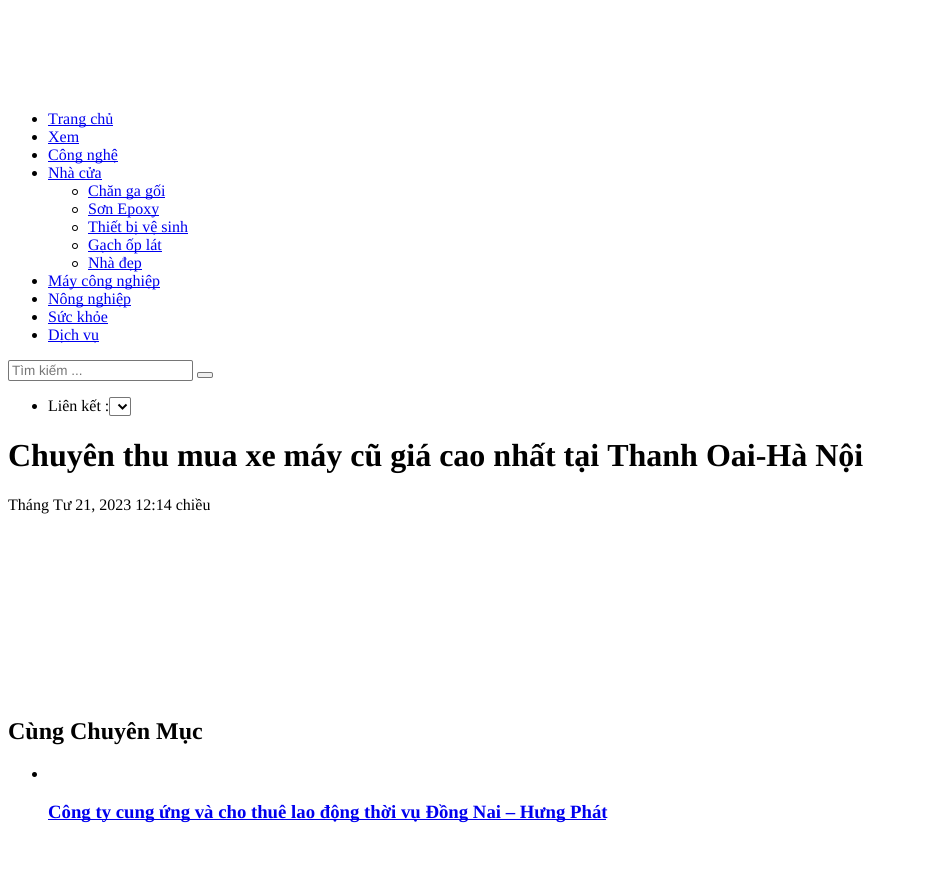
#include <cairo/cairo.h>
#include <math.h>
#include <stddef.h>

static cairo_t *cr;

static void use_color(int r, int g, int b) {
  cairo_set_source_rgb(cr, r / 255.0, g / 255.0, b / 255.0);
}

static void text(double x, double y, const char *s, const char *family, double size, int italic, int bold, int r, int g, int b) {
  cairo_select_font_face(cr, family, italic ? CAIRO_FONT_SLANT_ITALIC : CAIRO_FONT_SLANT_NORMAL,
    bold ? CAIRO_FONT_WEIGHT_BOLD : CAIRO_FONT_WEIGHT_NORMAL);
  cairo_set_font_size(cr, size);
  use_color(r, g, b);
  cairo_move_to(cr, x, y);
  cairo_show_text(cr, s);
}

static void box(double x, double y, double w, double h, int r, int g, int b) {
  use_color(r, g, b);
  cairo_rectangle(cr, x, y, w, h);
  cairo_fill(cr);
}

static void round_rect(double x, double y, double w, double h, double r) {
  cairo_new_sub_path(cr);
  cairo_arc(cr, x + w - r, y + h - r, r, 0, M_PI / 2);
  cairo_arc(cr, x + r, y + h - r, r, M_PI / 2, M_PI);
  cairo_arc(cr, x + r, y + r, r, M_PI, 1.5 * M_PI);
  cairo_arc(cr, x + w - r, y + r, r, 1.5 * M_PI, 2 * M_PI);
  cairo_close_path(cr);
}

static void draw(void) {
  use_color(255, 255, 255);
  cairo_paint(cr);
  use_color(0, 0, 0);
  cairo_arc(cr, 34.5, 119.5, 2.5, 0, 2 * M_PI);
  cairo_fill(cr);
  box(48, 125, 65, 1, 0, 0, 238);
  use_color(0, 0, 0);
  cairo_arc(cr, 34.5, 137.5, 2.5, 0, 2 * M_PI);
  cairo_fill(cr);
  box(48, 143, 31, 1, 0, 0, 238);
  use_color(0, 0, 0);
  cairo_arc(cr, 34.5, 155.5, 2.5, 0, 2 * M_PI);
  cairo_fill(cr);
  box(48, 161, 70, 1, 0, 0, 238);
  use_color(0, 0, 0);
  cairo_arc(cr, 34.5, 173.5, 2.5, 0, 2 * M_PI);
  cairo_fill(cr);
  box(48, 179, 54, 1, 0, 0, 238);
  cairo_arc(cr, 75, 192, 2.5, 0, 2 * M_PI);
  use_color(0, 0, 0);
  cairo_set_line_width(cr, 1);
  cairo_stroke(cr);
  box(88, 197, 77, 1, 0, 0, 238);
  cairo_arc(cr, 75, 210, 2.5, 0, 2 * M_PI);
  use_color(0, 0, 0);
  cairo_stroke(cr);
  box(88, 215, 71, 1, 0, 0, 238);
  cairo_arc(cr, 75, 228, 2.5, 0, 2 * M_PI);
  use_color(0, 0, 0);
  cairo_stroke(cr);
  box(88, 233, 100, 1, 0, 0, 238);
  cairo_arc(cr, 75, 246, 2.5, 0, 2 * M_PI);
  use_color(0, 0, 0);
  cairo_stroke(cr);
  box(88, 251, 74, 1, 0, 0, 238);
  cairo_arc(cr, 75, 264, 2.5, 0, 2 * M_PI);
  use_color(0, 0, 0);
  cairo_stroke(cr);
  box(88, 269, 54, 1, 0, 0, 238);
  use_color(0, 0, 0);
  cairo_arc(cr, 34.5, 281.5, 2.5, 0, 2 * M_PI);
  cairo_fill(cr);
  box(48, 287, 112, 1, 0, 0, 238);
  use_color(0, 0, 0);
  cairo_arc(cr, 34.5, 299.5, 2.5, 0, 2 * M_PI);
  cairo_fill(cr);
  box(48, 305, 83, 1, 0, 0, 238);
  use_color(0, 0, 0);
  cairo_arc(cr, 34.5, 317.5, 2.5, 0, 2 * M_PI);
  cairo_fill(cr);
  box(48, 323, 60, 1, 0, 0, 238);
  use_color(0, 0, 0);
  cairo_arc(cr, 34.5, 335.5, 2.5, 0, 2 * M_PI);
  cairo_fill(cr);
  box(48, 341, 51, 1, 0, 0, 238);
  round_rect(8.5, 360.5, 184, 20, 1.5);
  use_color(118, 118, 118);
  cairo_stroke(cr);
  use_color(239, 239, 239);
  round_rect(197.5, 372.5, 15, 5, 1.5);
  cairo_fill_preserve(cr);
  use_color(118, 118, 118);
  cairo_stroke(cr);
  use_color(0, 0, 0);
  cairo_arc(cr, 34.5, 406.5, 2.5, 0, 2 * M_PI);
  cairo_fill(cr);
  round_rect(109.5, 397.5, 21, 18, 1.5);
  use_color(118, 118, 118);
  cairo_stroke(cr);
  cairo_new_path(cr);
  cairo_move_to(cr, 118.5, 404.5);
  cairo_line_to(cr, 122.5, 408.5);
  cairo_line_to(cr, 126.5, 404.5);
  use_color(0, 0, 0);
  cairo_set_line_width(cr, 2);
  cairo_stroke(cr);
  cairo_arc(cr, 34.5, 774.5, 2.5, 0, 2 * M_PI);
  cairo_fill(cr);
  box(48, 819, 558, 1, 0, 0, 238);
  text(48, 124, "Trang chủ", "Liberation Serif", 16, 0, 0, 0, 0, 238);
  text(48, 142, "Xem", "Liberation Serif", 16, 0, 0, 0, 0, 238);
  text(48, 160, "Công nghệ", "Liberation Serif", 16, 0, 0, 0, 0, 238);
  text(48, 178, "Nhà cửa", "Liberation Serif", 16, 0, 0, 0, 0, 238);
  text(88, 196, "Chăn ga gối", "Liberation Serif", 16, 0, 0, 0, 0, 238);
  text(88, 214, "Sơn Epoxy", "Liberation Serif", 16, 0, 0, 0, 0, 238);
  text(88, 232, "Thiết bị vệ sinh", "Liberation Serif", 16, 0, 0, 0, 0, 238);
  text(88, 250, "Gạch ốp lát", "Liberation Serif", 16, 0, 0, 0, 0, 238);
  text(88, 268, "Nhà đẹp", "Liberation Serif", 16, 0, 0, 0, 0, 238);
  text(48, 286, "Máy công nghiệp", "Liberation Serif", 16, 0, 0, 0, 0, 238);
  text(48, 304, "Nông nghiệp", "Liberation Serif", 16, 0, 0, 0, 0, 238);
  text(48, 322, "Sức khỏe", "Liberation Serif", 16, 0, 0, 0, 0, 238);
  text(48, 340, "Dịch vụ", "Liberation Serif", 16, 0, 0, 0, 0, 238);
  text(12, 375, "Tìm kiếm ...", "Liberation Sans", 13.5, 0, 0, 117, 117, 117);
  text(48, 411, "Liên kết :", "Liberation Serif", 16, 0, 0, 0, 0, 0);
  text(8, 466, "Chuyên thu mua xe máy cũ giá cao nhất tại Thanh Oai-Hà Nội", "Liberation Serif", 32, 0, 1, 0, 0, 0);
  text(8, 510, "Tháng Tư 21, 2023 12:14 chiều", "Liberation Serif", 16, 0, 0, 0, 0, 0);
  text(8, 739, "Cùng Chuyên Mục", "Liberation Serif", 24, 0, 1, 0, 0, 0);
  text(48, 818, "Công ty cung ứng và cho thuê lao động thời vụ Đồng Nai – Hưng Phát", "Liberation Serif", 18.75, 0, 1, 0, 0, 238);
}

int main(void) {
  cairo_surface_t *surface = cairo_image_surface_create(CAIRO_FORMAT_RGB24, 943, 895);
  cr = cairo_create(surface);
  cairo_font_options_t *options = cairo_font_options_create();
  cairo_font_options_set_hint_metrics(options, CAIRO_HINT_METRICS_OFF);
  cairo_font_options_set_hint_style(options, CAIRO_HINT_STYLE_NONE);
  cairo_set_font_options(cr, options);
  cairo_set_miter_limit(cr, 4);
  draw();
  cairo_surface_write_to_png(surface, "out.png");
  cairo_font_options_destroy(options);
  cairo_destroy(cr);
  cairo_surface_destroy(surface);
  return 0;
}
